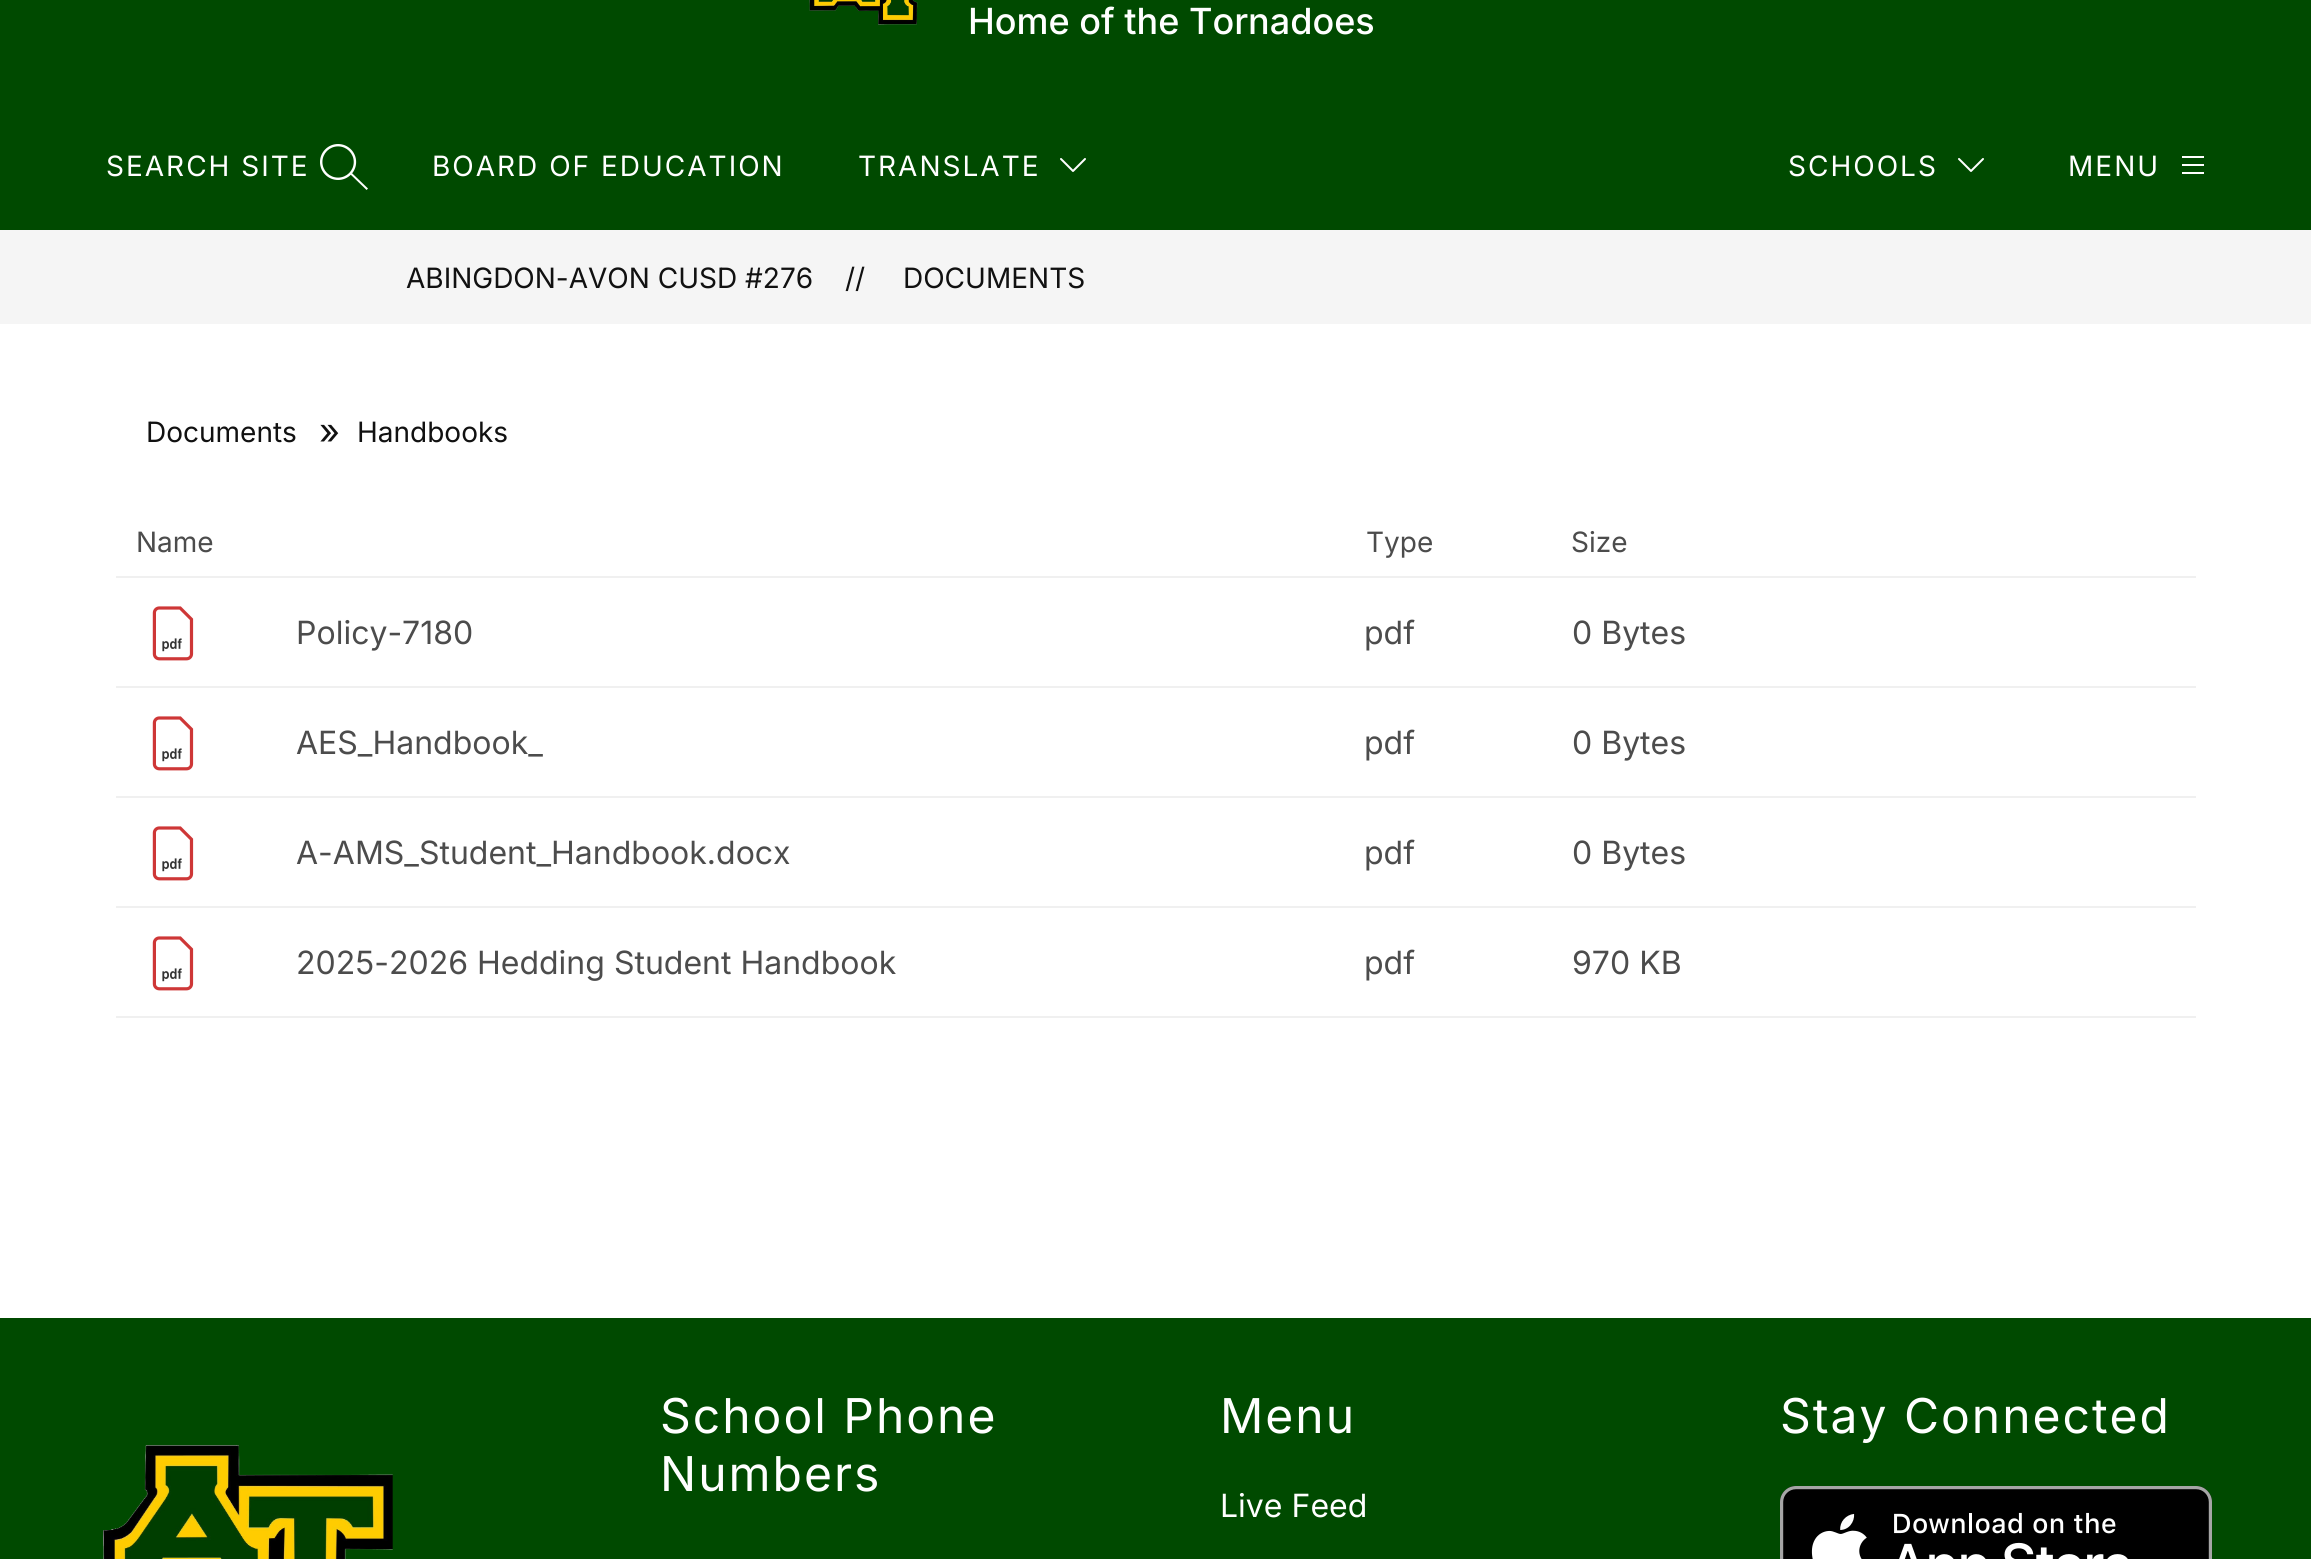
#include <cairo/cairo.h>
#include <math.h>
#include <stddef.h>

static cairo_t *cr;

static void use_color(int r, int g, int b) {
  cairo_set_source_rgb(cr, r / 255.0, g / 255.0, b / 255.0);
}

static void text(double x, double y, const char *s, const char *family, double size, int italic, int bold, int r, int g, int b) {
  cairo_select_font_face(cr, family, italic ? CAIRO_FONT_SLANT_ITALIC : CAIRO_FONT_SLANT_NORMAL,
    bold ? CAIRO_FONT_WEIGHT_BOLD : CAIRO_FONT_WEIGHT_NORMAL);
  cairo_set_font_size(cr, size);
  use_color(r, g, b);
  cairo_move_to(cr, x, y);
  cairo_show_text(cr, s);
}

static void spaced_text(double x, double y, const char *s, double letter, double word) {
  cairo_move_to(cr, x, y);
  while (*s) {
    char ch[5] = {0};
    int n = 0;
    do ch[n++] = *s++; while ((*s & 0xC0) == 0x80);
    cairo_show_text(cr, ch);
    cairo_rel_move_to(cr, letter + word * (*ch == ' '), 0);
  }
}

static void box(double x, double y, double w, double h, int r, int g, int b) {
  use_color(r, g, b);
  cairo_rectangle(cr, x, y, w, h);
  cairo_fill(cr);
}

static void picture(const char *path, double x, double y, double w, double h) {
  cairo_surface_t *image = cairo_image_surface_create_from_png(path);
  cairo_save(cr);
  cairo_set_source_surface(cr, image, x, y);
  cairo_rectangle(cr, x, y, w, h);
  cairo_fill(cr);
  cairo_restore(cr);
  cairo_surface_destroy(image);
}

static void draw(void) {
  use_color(255, 255, 255);
  cairo_paint(cr);
  box(0, 0, 2311, 230, 0, 74, 0);
  picture("img_01.png", 809, 0, 109, 25);
  picture("img_02.png", 320, 144, 48, 46);
  picture("img_03.png", 1060, 158, 26, 14);
  picture("img_03.png", 1958, 158, 26, 14);
  picture("img_04.png", 2182, 156, 22, 18);
  box(0, 230, 2311, 94, 245, 245, 245);
  box(116, 576, 2080, 2, 240, 240, 240);
  box(116, 686, 2080, 2, 240, 240, 240);
  picture("img_05.png", 152, 606, 42, 55);
  box(116, 796, 2080, 2, 240, 240, 240);
  picture("img_05.png", 152, 716, 42, 55);
  box(116, 906, 2080, 2, 240, 240, 240);
  picture("img_05.png", 152, 826, 42, 55);
  box(116, 1016, 2080, 2, 240, 240, 240);
  picture("img_05.png", 152, 936, 42, 55);
  box(0, 1318, 2311, 241, 0, 74, 0);
  picture("img_06.png", 103, 1445, 290, 114);
  picture("img_07.png", 1780, 1486, 432, 73);
  text(968, 34, "Home of the Tornadoes", "Inter Medium", 36, 0, 0, 255, 255, 255);
  cairo_select_font_face(cr, "Inter", CAIRO_FONT_SLANT_NORMAL, CAIRO_FONT_WEIGHT_NORMAL);
  cairo_set_font_size(cr, 28);
  spaced_text(106, 176, "SEARCH SITE", 2, 0);
  spaced_text(432, 176, "BOARD OF EDUCATION", 2, 0);
  spaced_text(858, 176, "TRANSLATE", 2, 0);
  spaced_text(1788, 176, "SCHOOLS", 2, 0);
  spaced_text(2068, 176, "MENU", 2, 0);
  text(406, 288, "ABINGDON-AVON CUSD #276", "Inter", 28, 0, 0, 17, 17, 17);
  text(845, 288, "//", "Inter", 28, 0, 0, 17, 17, 17);
  text(903, 288, "DOCUMENTS", "Inter", 28, 0, 0, 17, 17, 17);
  text(146, 442, "Documents", "Inter", 28, 0, 0, 17, 17, 17);
  text(319, 444, "»", "Inter", 36, 0, 0, 17, 17, 17);
  text(357, 442, "Handbooks", "Inter", 28, 0, 0, 17, 17, 17);
  text(136, 552, "Name", "Inter", 28, 0, 0, 76, 76, 76);
  text(1366, 552, "Type", "Inter", 28, 0, 0, 76, 76, 76);
  text(1571, 552, "Size", "Inter", 28, 0, 0, 76, 76, 76);
  text(296, 644, "Policy-7180", "Inter", 32, 0, 0, 76, 76, 76);
  text(1364, 644, "pdf", "Inter", 32, 0, 0, 76, 76, 76);
  text(1572, 644, "0 Bytes", "Inter", 32, 0, 0, 76, 76, 76);
  text(296, 754, "AES_Handbook_", "Inter", 32, 0, 0, 76, 76, 76);
  text(1364, 754, "pdf", "Inter", 32, 0, 0, 76, 76, 76);
  text(1572, 754, "0 Bytes", "Inter", 32, 0, 0, 76, 76, 76);
  text(296, 864, "A-AMS_Student_Handbook.docx", "Inter", 32, 0, 0, 76, 76, 76);
  text(1364, 864, "pdf", "Inter", 32, 0, 0, 76, 76, 76);
  text(1572, 864, "0 Bytes", "Inter", 32, 0, 0, 76, 76, 76);
  text(296, 974, "2025-2026 Hedding Student Handbook", "Inter", 32, 0, 0, 76, 76, 76);
  text(1364, 974, "pdf", "Inter", 32, 0, 0, 76, 76, 76);
  text(1572, 974, "970 KB", "Inter", 32, 0, 0, 76, 76, 76);
  cairo_set_font_size(cr, 48);
  use_color(255, 255, 255);
  spaced_text(660, 1433, "School Phone", 2, 0);
  spaced_text(660, 1491, "Numbers", 2, 0);
  spaced_text(1220, 1433, "Menu", 2, 0);
  text(1220, 1517, "Live Feed", "Inter", 32, 0, 0, 255, 255, 255);
  cairo_set_font_size(cr, 48);
  spaced_text(1780, 1433, "Stay Connected", 2, 0);
}

int main(void) {
  cairo_surface_t *surface = cairo_image_surface_create(CAIRO_FORMAT_RGB24, 2311, 1559);
  cr = cairo_create(surface);
  cairo_font_options_t *options = cairo_font_options_create();
  cairo_font_options_set_hint_metrics(options, CAIRO_HINT_METRICS_OFF);
  cairo_font_options_set_hint_style(options, CAIRO_HINT_STYLE_NONE);
  cairo_set_font_options(cr, options);
  cairo_set_miter_limit(cr, 4);
  draw();
  cairo_surface_write_to_png(surface, "out.png");
  cairo_font_options_destroy(options);
  cairo_destroy(cr);
  cairo_surface_destroy(surface);
  return 0;
}
